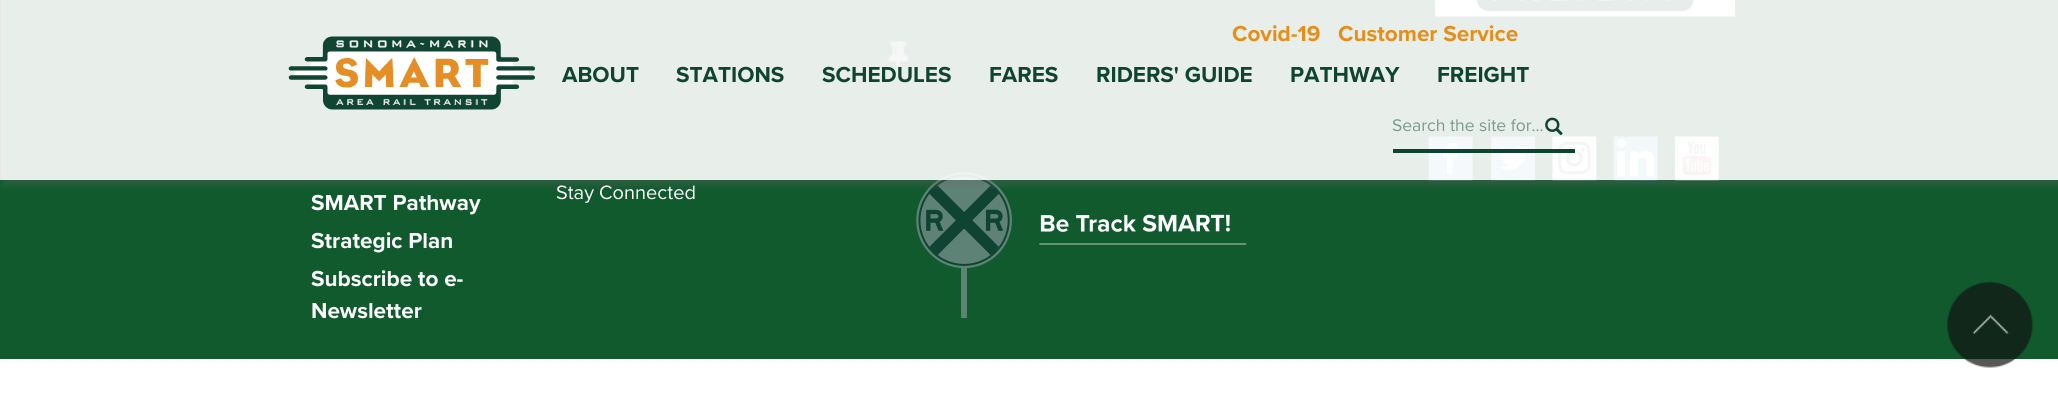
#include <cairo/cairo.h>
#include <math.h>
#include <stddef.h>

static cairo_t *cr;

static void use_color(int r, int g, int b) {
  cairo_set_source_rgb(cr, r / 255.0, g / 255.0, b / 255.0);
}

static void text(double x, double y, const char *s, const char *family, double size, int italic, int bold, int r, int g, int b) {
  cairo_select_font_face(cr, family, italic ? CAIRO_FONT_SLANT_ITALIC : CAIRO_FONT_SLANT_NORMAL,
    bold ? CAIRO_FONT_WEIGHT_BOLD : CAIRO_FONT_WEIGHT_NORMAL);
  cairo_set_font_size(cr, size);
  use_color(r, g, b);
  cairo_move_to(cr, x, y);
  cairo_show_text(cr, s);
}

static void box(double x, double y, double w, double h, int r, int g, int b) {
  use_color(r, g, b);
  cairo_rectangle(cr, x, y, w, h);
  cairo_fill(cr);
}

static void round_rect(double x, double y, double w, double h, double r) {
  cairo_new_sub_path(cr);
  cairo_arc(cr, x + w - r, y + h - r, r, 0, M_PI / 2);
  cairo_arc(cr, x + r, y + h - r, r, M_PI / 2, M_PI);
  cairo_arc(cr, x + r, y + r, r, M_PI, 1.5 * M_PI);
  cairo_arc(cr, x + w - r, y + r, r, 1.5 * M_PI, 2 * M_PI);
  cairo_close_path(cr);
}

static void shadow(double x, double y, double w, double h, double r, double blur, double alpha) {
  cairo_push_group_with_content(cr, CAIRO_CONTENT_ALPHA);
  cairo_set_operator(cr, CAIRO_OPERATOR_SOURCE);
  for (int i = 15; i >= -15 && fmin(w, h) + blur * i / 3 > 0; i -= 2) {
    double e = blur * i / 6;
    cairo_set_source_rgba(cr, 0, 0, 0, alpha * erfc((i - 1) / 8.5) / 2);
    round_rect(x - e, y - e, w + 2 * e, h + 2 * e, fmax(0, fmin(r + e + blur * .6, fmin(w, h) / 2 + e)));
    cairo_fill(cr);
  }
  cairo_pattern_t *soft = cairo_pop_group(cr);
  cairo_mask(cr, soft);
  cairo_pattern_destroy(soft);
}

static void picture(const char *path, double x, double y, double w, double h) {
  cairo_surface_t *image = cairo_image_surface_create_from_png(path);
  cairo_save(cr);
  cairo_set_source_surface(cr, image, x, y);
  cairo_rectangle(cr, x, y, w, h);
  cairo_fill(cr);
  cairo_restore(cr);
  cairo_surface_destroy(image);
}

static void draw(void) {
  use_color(255, 255, 255);
  cairo_paint(cr);
  box(0, 0, 2058, 359, 16, 90, 45);
  picture("img_03.png", 887, 41, 22, 30);
  picture("img_04.png", 1435, 0, 300, 17);
  picture("img_05.png", 1428, 136, 45, 45);
  picture("img_06.png", 1491, 136, 44, 45);
  picture("img_07.png", 1552, 136, 45, 45);
  picture("img_08.png", 1613, 136, 45, 45);
  picture("img_09.png", 1675, 136, 44, 45);
  picture("img_10.png", 916, 172, 331, 146);
  cairo_save(cr);
  cairo_rectangle(cr, 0, 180, 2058, 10);
  cairo_clip(cr);
  use_color(102, 102, 102);
  shadow(3, 6, 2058, 180, 0, 3, 0.3);
  cairo_restore(cr);
  cairo_set_source_rgba(cr, 1, 1, 1, 0.9);
  cairo_rectangle(cr, 1, 0, 2057, 180);
  cairo_fill(cr);
  box(0, 0, 1, 180, 231, 231, 231);
  picture("img_01.png", 288, 36, 247, 74);
  box(1393, 149, 182, 4, 16, 68, 50);
  picture("img_02.png", 1545, 117, 18, 19);
  picture("img_11.png", 1947, 281, 86, 87);
  text(1232, 41, "Covid-19", "Proxima Nova", 22.5, 0, 1, 229, 142, 26);
  text(1338, 41, "Customer Service", "Proxima Nova", 22.5, 0, 1, 229, 142, 26);
  text(562, 82, "ABOUT", "Proxima Nova", 22.5, 0, 1, 16, 68, 50);
  text(676, 82, "STATIONS", "Proxima Nova", 22.5, 0, 1, 16, 68, 50);
  text(822, 82, "SCHEDULES", "Proxima Nova", 22.5, 0, 1, 16, 68, 50);
  text(989, 82, "FARES", "Proxima Nova", 22.5, 0, 1, 16, 68, 50);
  text(1096, 82, "RIDERS' GUIDE", "Proxima Nova", 22.5, 0, 1, 16, 68, 50);
  text(1290, 82, "PATHWAY", "Proxima Nova", 22.5, 0, 1, 16, 68, 50);
  text(1437, 82, "FREIGHT", "Proxima Nova", 22.5, 0, 1, 16, 68, 50);
  text(1392, 131, "Search the site for...", "Proxima Nova", 17.5, 0, 0, 121, 154, 143);
  text(311, 210, "SMART Pathway", "Proxima Nova", 22.5, 0, 1, 255, 255, 255);
  text(311, 248, "Strategic Plan", "Proxima Nova", 22.5, 0, 1, 255, 255, 255);
  text(311, 286, "Subscribe to e-", "Proxima Nova", 22.5, 0, 1, 255, 255, 255);
  text(311, 318, "Newsletter", "Proxima Nova", 22.5, 0, 1, 255, 255, 255);
  text(556, 199, "Stay Connected", "Proxima Nova", 20, 0, 0, 255, 255, 255);
}

int main(void) {
  cairo_surface_t *surface = cairo_image_surface_create(CAIRO_FORMAT_RGB24, 2058, 393);
  cr = cairo_create(surface);
  cairo_font_options_t *options = cairo_font_options_create();
  cairo_font_options_set_hint_metrics(options, CAIRO_HINT_METRICS_OFF);
  cairo_font_options_set_hint_style(options, CAIRO_HINT_STYLE_NONE);
  cairo_set_font_options(cr, options);
  cairo_set_miter_limit(cr, 4);
  draw();
  cairo_surface_write_to_png(surface, "out.png");
  cairo_font_options_destroy(options);
  cairo_destroy(cr);
  cairo_surface_destroy(surface);
  return 0;
}
